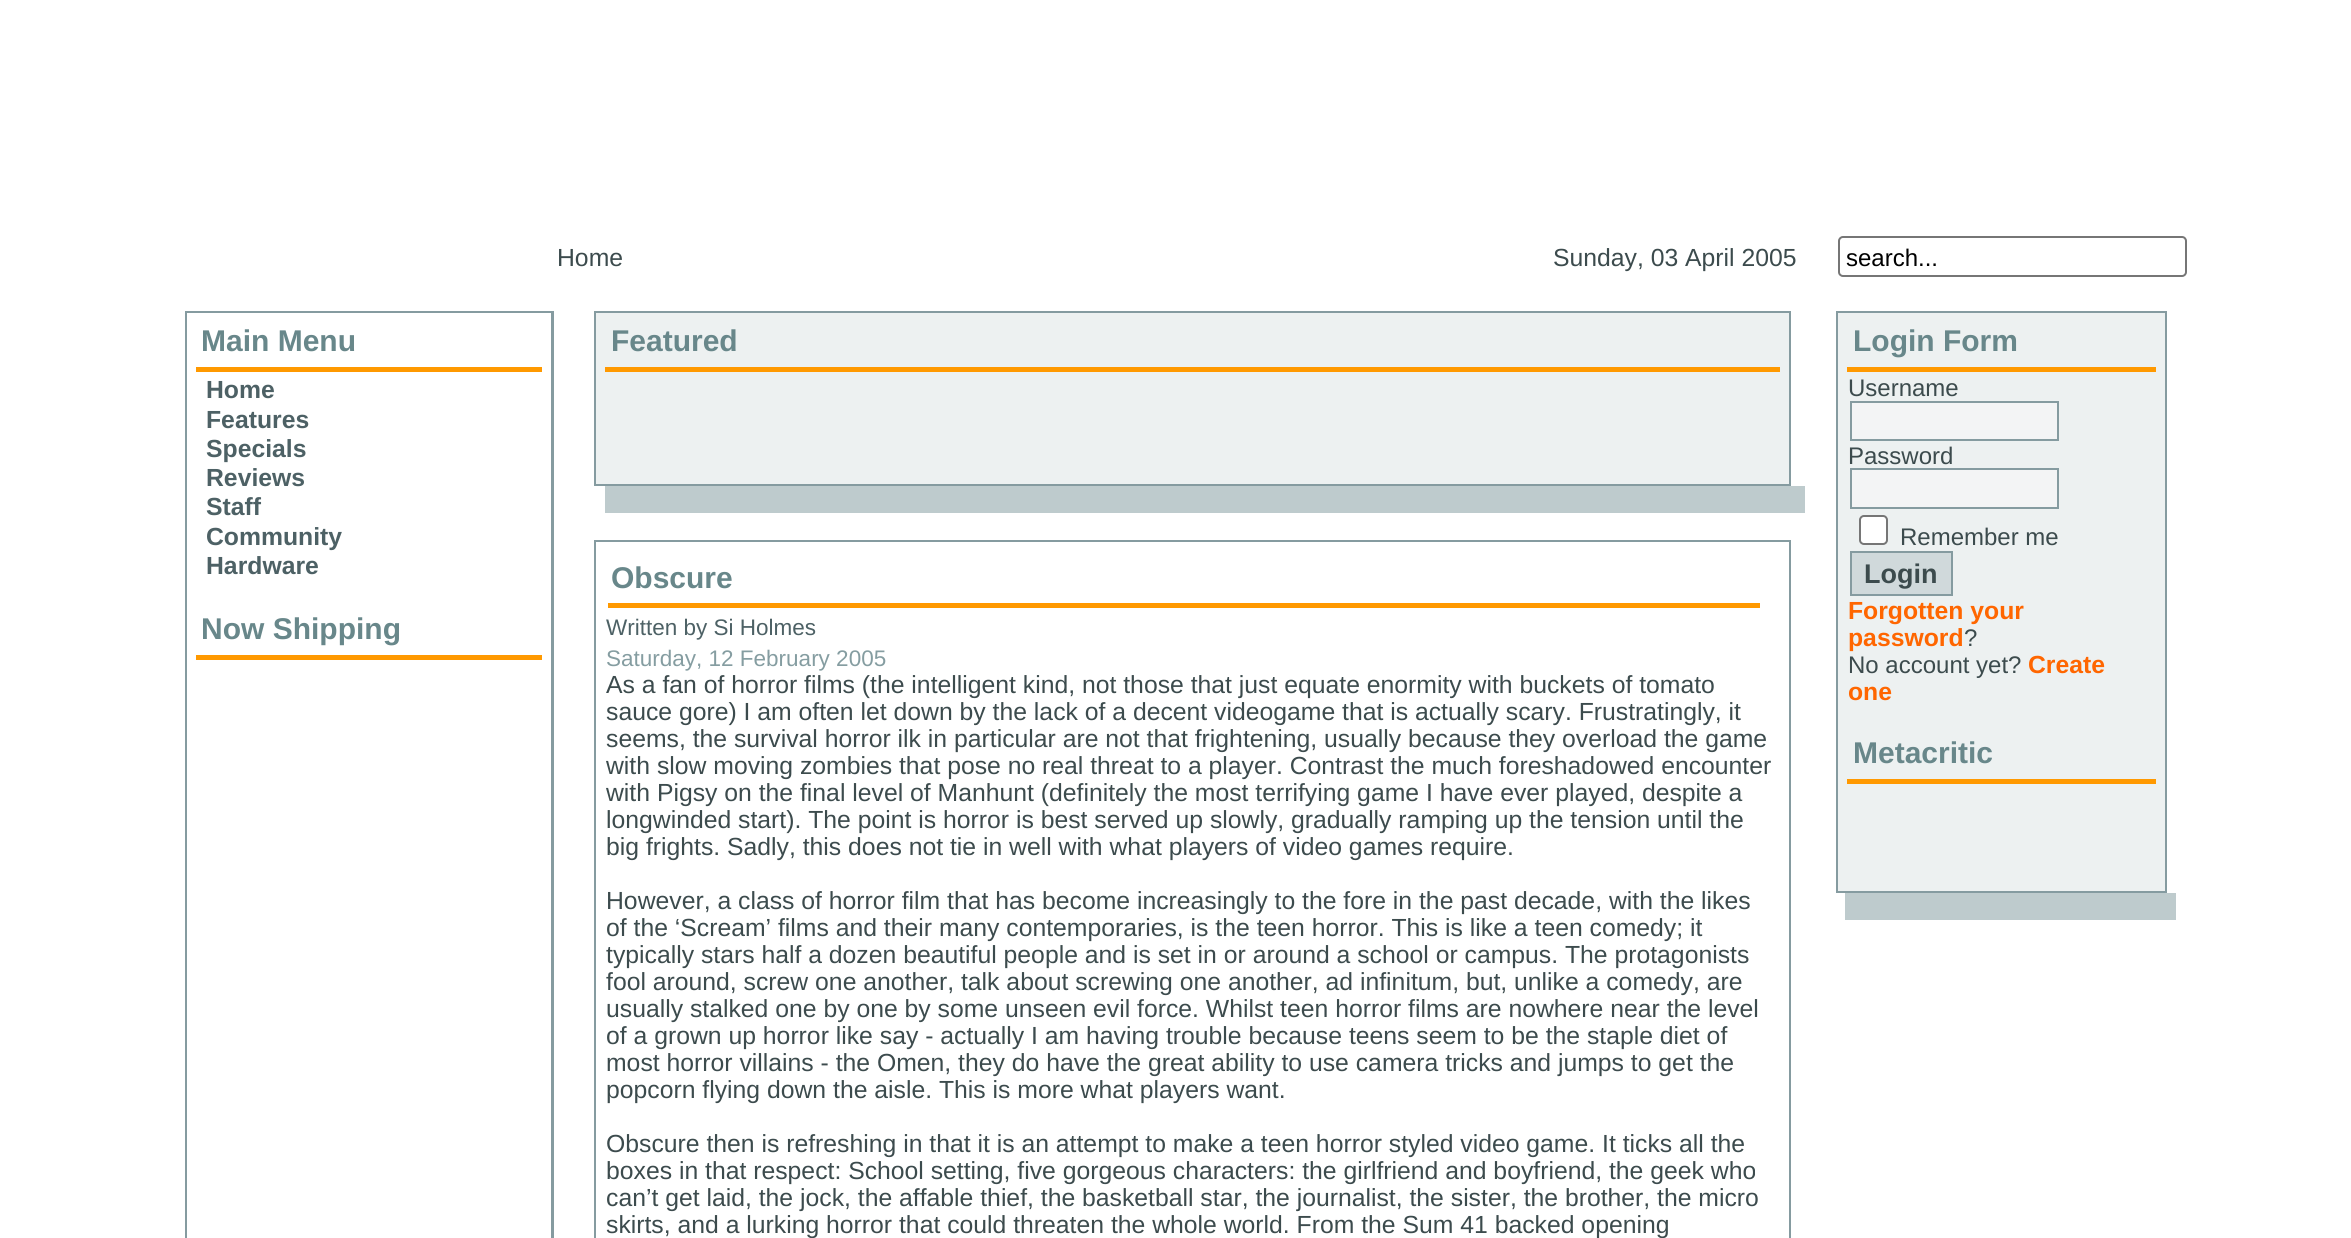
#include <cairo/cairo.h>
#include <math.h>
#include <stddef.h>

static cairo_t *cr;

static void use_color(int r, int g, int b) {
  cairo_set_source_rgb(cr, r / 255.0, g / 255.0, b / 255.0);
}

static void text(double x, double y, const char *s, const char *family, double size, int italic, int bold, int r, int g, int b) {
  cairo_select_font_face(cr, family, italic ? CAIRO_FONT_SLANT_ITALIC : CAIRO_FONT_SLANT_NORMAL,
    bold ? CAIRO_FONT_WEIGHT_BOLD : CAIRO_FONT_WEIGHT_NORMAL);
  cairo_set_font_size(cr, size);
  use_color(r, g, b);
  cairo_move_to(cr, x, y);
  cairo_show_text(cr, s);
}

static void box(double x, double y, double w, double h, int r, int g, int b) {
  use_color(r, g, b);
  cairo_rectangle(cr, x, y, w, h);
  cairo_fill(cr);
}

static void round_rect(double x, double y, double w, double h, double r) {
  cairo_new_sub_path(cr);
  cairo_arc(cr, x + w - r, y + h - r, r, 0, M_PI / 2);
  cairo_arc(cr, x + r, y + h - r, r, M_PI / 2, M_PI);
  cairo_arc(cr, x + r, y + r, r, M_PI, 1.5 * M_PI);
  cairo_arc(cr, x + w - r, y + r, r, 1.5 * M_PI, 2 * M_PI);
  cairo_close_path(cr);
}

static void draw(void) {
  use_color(255, 255, 255);
  cairo_paint(cr);
  round_rect(1839, 237, 347, 39, 4);
  use_color(118, 118, 118);
  cairo_stroke(cr);
  box(185, 311, 369, 927, 133, 155, 160);
  box(187, 313, 364, 925, 255, 255, 255);
  box(196, 367, 346, 5, 255, 153, 0);
  box(196, 655, 346, 5, 255, 153, 0);
  box(594, 311, 1197, 175, 133, 155, 160);
  box(596, 313, 1193, 171, 237, 241, 241);
  box(605, 367, 1175, 5, 255, 153, 0);
  box(605, 486, 1200, 27, 190, 203, 205);
  box(594, 540, 1197, 698, 133, 155, 160);
  box(596, 542, 1193, 696, 255, 255, 255);
  box(608, 603, 1152, 5, 255, 153, 0);
  box(1836, 311, 331, 582, 133, 155, 160);
  box(1838, 313, 327, 578, 237, 241, 241);
  box(1847, 367, 309, 5, 255, 153, 0);
  use_color(243, 244, 245);
  cairo_rectangle(cr, 1851, 402, 207, 38);
  cairo_fill_preserve(cr);
  use_color(133, 155, 160);
  cairo_stroke(cr);
  use_color(243, 244, 245);
  cairo_rectangle(cr, 1851, 469, 207, 39);
  cairo_fill_preserve(cr);
  use_color(133, 155, 160);
  cairo_stroke(cr);
  use_color(255, 255, 255);
  round_rect(1860, 516, 27, 28, 4);
  cairo_fill_preserve(cr);
  use_color(118, 118, 118);
  cairo_stroke(cr);
  use_color(208, 217, 219);
  cairo_rectangle(cr, 1851, 552, 101, 43);
  cairo_fill_preserve(cr);
  use_color(133, 155, 160);
  cairo_stroke(cr);
  box(1847, 779, 309, 5, 255, 153, 0);
  box(1845, 893, 331, 27, 190, 203, 205);
  text(557, 266, "Home", "Liberation Sans", 24.75, 0, 0, 60, 75, 77);
  text(1553, 266, "Sunday, 03 April 2005", "Liberation Sans", 24.75, 0, 0, 60, 75, 77);
  text(1846, 266, "search...", "Liberation Sans", 24, 0, 0, 0, 0, 0);
  text(201, 351, "Main Menu", "Liberation Sans", 30, 0, 1, 104, 135, 138);
  text(206, 398, "Home", "Liberation Sans", 24.75, 0, 1, 77, 97, 101);
  text(206, 428, "Features", "Liberation Sans", 24.75, 0, 1, 77, 97, 101);
  text(206, 457, "Specials", "Liberation Sans", 24.75, 0, 1, 77, 97, 101);
  text(206, 486, "Reviews", "Liberation Sans", 24.75, 0, 1, 77, 97, 101);
  text(206, 515, "Staff", "Liberation Sans", 24.75, 0, 1, 77, 97, 101);
  text(206, 545, "Community", "Liberation Sans", 24.75, 0, 1, 77, 97, 101);
  text(206, 574, "Hardware", "Liberation Sans", 24.75, 0, 1, 77, 97, 101);
  text(201, 639, "Now Shipping", "Liberation Sans", 30, 0, 1, 104, 135, 138);
  text(611, 351, "Featured", "Liberation Sans", 30, 0, 1, 104, 135, 138);
  text(611, 588, "Obscure", "Liberation Sans", 30, 0, 1, 104, 135, 138);
  text(606, 635, "Written by Si Holmes", "Liberation Sans", 22.5, 0, 0, 77, 97, 101);
  text(606, 666, "Saturday, 12 February 2005", "Liberation Sans", 22.5, 0, 0, 133, 157, 161);
  text(606, 693, "As a fan of horror films (the intelligent kind, not those that just equate enormity with buckets of tomato", "Liberation Sans", 24.75, 0, 0, 60, 75, 77);
  text(606, 720, "sauce gore) I am often let down by the lack of a decent videogame that is actually scary. Frustratingly, it", "Liberation Sans", 24.75, 0, 0, 60, 75, 77);
  text(606, 747, "seems, the survival horror ilk in particular are not that frightening, usually because they overload the game", "Liberation Sans", 24.75, 0, 0, 60, 75, 77);
  text(606, 774, "with slow moving zombies that pose no real threat to a player. Contrast the much foreshadowed encounter", "Liberation Sans", 24.75, 0, 0, 60, 75, 77);
  text(606, 801, "with Pigsy on the final level of Manhunt (definitely the most terrifying game I have ever played, despite a", "Liberation Sans", 24.75, 0, 0, 60, 75, 77);
  text(606, 828, "longwinded start). The point is horror is best served up slowly, gradually ramping up the tension until the", "Liberation Sans", 24.75, 0, 0, 60, 75, 77);
  text(606, 855, "big frights. Sadly, this does not tie in well with what players of video games require.", "Liberation Sans", 24.75, 0, 0, 60, 75, 77);
  text(606, 909, "However, a class of horror film that has become increasingly to the fore in the past decade, with the likes", "Liberation Sans", 24.75, 0, 0, 60, 75, 77);
  text(606, 936, "of the ‘Scream’ films and their many contemporaries, is the teen horror. This is like a teen comedy; it", "Liberation Sans", 24.75, 0, 0, 60, 75, 77);
  text(606, 963, "typically stars half a dozen beautiful people and is set in or around a school or campus. The protagonists", "Liberation Sans", 24.75, 0, 0, 60, 75, 77);
  text(606, 990, "fool around, screw one another, talk about screwing one another, ad infinitum, but, unlike a comedy, are", "Liberation Sans", 24.75, 0, 0, 60, 75, 77);
  text(606, 1017, "usually stalked one by one by some unseen evil force. Whilst teen horror films are nowhere near the level", "Liberation Sans", 24.75, 0, 0, 60, 75, 77);
  text(606, 1044, "of a grown up horror like say - actually I am having trouble because teens seem to be the staple diet of", "Liberation Sans", 24.75, 0, 0, 60, 75, 77);
  text(606, 1071, "most horror villains - the Omen, they do have the great ability to use camera tricks and jumps to get the", "Liberation Sans", 24.75, 0, 0, 60, 75, 77);
  text(606, 1098, "popcorn flying down the aisle. This is more what players want.", "Liberation Sans", 24.75, 0, 0, 60, 75, 77);
  text(606, 1152, "Obscure then is refreshing in that it is an attempt to make a teen horror styled video game. It ticks all the", "Liberation Sans", 24.75, 0, 0, 60, 75, 77);
  text(606, 1179, "boxes in that respect: School setting, five gorgeous characters: the girlfriend and boyfriend, the geek who", "Liberation Sans", 24.75, 0, 0, 60, 75, 77);
  text(606, 1206, "can’t get laid, the jock, the affable thief, the basketball star, the journalist, the sister, the brother, the micro", "Liberation Sans", 24.75, 0, 0, 60, 75, 77);
  text(606, 1233, "skirts, and a lurking horror that could threaten the whole world. From the Sum 41 backed opening", "Liberation Sans", 24.75, 0, 0, 60, 75, 77);
  text(1853, 351, "Login Form", "Liberation Sans", 30, 0, 1, 104, 135, 138);
  text(1848, 396, "Username", "Liberation Sans", 24, 0, 0, 60, 75, 77);
  text(1848, 464, "Password", "Liberation Sans", 24, 0, 0, 60, 75, 77);
  text(1900, 545, "Remember me", "Liberation Sans", 24, 0, 0, 60, 75, 77);
  text(1864, 583, "Login", "Liberation Sans", 27, 0, 1, 60, 75, 77);
  text(1848, 619, "Forgotten your", "Liberation Sans", 24.75, 0, 1, 255, 102, 0);
  text(1848, 646, "password", "Liberation Sans", 24.75, 0, 1, 255, 102, 0);
  text(1964, 646, "?", "Liberation Sans", 24, 0, 0, 60, 75, 77);
  text(1848, 673, "No account yet?", "Liberation Sans", 24, 0, 0, 60, 75, 77);
  text(2028, 673, "Create", "Liberation Sans", 24.75, 0, 1, 255, 102, 0);
  text(1848, 700, "one", "Liberation Sans", 24.75, 0, 1, 255, 102, 0);
  text(1853, 763, "Metacritic", "Liberation Sans", 30, 0, 1, 104, 135, 138);
}

int main(void) {
  cairo_surface_t *surface = cairo_image_surface_create(CAIRO_FORMAT_RGB24, 2351, 1238);
  cr = cairo_create(surface);
  cairo_font_options_t *options = cairo_font_options_create();
  cairo_font_options_set_hint_metrics(options, CAIRO_HINT_METRICS_OFF);
  cairo_font_options_set_hint_style(options, CAIRO_HINT_STYLE_NONE);
  cairo_set_font_options(cr, options);
  cairo_set_miter_limit(cr, 4);
  draw();
  cairo_surface_write_to_png(surface, "out.png");
  cairo_font_options_destroy(options);
  cairo_destroy(cr);
  cairo_surface_destroy(surface);
  return 0;
}
